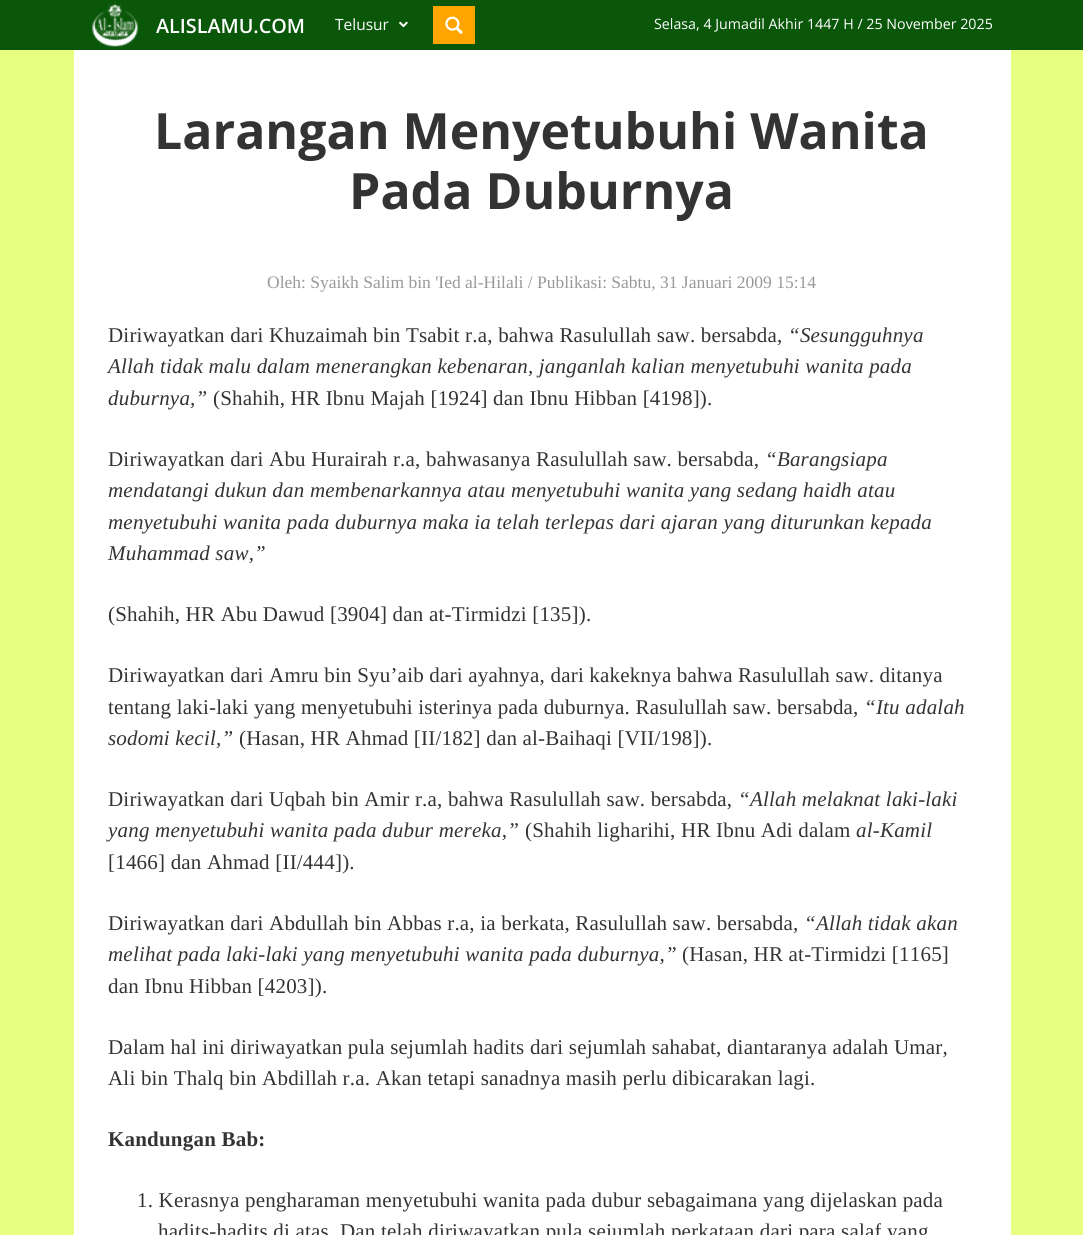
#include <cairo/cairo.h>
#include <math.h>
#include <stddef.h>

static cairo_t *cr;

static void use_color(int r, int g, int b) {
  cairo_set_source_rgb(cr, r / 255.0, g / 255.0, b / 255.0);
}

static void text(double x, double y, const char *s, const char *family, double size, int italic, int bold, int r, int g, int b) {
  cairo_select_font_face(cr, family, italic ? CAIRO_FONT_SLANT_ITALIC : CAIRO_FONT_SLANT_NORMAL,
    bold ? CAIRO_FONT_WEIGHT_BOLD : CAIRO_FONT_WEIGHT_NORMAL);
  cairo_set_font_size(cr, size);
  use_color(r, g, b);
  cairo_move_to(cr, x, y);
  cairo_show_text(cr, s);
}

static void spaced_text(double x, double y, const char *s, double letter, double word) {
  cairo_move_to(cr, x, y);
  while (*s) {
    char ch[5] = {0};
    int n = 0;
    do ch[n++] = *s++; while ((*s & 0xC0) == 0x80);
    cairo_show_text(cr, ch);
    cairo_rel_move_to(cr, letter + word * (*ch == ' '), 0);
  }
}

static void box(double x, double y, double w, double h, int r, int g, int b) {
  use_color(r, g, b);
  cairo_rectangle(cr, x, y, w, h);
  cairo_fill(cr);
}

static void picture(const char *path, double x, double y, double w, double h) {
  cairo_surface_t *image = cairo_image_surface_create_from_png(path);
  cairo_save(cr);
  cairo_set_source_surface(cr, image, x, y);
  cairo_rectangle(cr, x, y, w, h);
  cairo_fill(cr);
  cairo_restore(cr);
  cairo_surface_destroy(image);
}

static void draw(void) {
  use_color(230, 255, 128);
  cairo_paint(cr);
  box(0, 0, 1083, 50, 10, 87, 10);
  picture("img_01.png", 92, 1, 46, 46);
  picture("img_02.png", 399, 21, 9, 7);
  box(433, 6, 42, 38, 255, 165, 0);
  picture("img_03.png", 445, 16, 18, 18);
  box(74, 50, 937, 1185, 255, 255, 255);
  text(156, 33, "ALISLAMU.COM", "Open Sans SemiBold", 19.75, 0, 0, 255, 255, 255);
  text(335, 30, "Telusur", "Open Sans", 15.5, 0, 0, 255, 255, 255);
  text(654, 29, "Selasa, 4 Jumadil Akhir 1447 H / 25 November 2025", "Open Sans", 14.25, 0, 0, 255, 255, 255);
  text(154, 149, "Larangan Menyetubuhi Wanita", "Open Sans", 50, 0, 1, 51, 51, 51);
  text(349, 209, "Pada Duburnya", "Open Sans", 50, 0, 1, 51, 51, 51);
  text(267, 288, "Oleh: Syaikh Salim bin 'Ied al-Hilali / Publikasi: Sabtu, 31 Januari 2009 15:14", "Liberation Serif", 17.5, 0, 0, 153, 153, 153);
  cairo_set_font_size(cr, 21);
  use_color(51, 51, 51);
  spaced_text(108, 342, "Diriwayatkan dari Khuzaimah bin Tsabit r.a, bahwa Rasulullah saw. bersabda,", 0.2, 0);
  cairo_select_font_face(cr, "Liberation Serif", CAIRO_FONT_SLANT_ITALIC, CAIRO_FONT_WEIGHT_NORMAL);
  spaced_text(788, 342, "“Sesungguhnya", 0.2, 0);
  spaced_text(108, 373, "Allah tidak malu dalam menerangkan kebenaran, janganlah kalian menyetubuhi wanita pada", 0.2, 0);
  spaced_text(108, 405, "duburnya,”", 0.2, 0);
  cairo_select_font_face(cr, "Liberation Serif", CAIRO_FONT_SLANT_NORMAL, CAIRO_FONT_WEIGHT_NORMAL);
  spaced_text(213, 405, "(Shahih, HR Ibnu Majah [1924] dan Ibnu Hibban [4198]).", 0.2, 0);
  spaced_text(108, 466, "Diriwayatkan dari Abu Hurairah r.a, bahwasanya Rasulullah saw. bersabda,", 0.2, 0);
  cairo_select_font_face(cr, "Liberation Serif", CAIRO_FONT_SLANT_ITALIC, CAIRO_FONT_WEIGHT_NORMAL);
  spaced_text(765, 466, "“Barangsiapa", 0.2, 0);
  spaced_text(108, 497, "mendatangi dukun dan membenarkannya atau menyetubuhi wanita yang sedang haidh atau", 0.2, 0);
  spaced_text(108, 529, "menyetubuhi wanita pada duburnya maka ia telah terlepas dari ajaran yang diturunkan kepada", 0.2, 0);
  spaced_text(108, 560, "Muhammad saw,”", 0.2, 0);
  cairo_select_font_face(cr, "Liberation Serif", CAIRO_FONT_SLANT_NORMAL, CAIRO_FONT_WEIGHT_NORMAL);
  spaced_text(108, 621, "(Shahih, HR Abu Dawud [3904] dan at-Tirmidzi [135]).", 0.2, 0);
  spaced_text(108, 682, "Diriwayatkan dari Amru bin Syu’aib dari ayahnya, dari kakeknya bahwa Rasulullah saw. ditanya", 0.2, 0);
  spaced_text(108, 714, "tentang laki-laki yang menyetubuhi isterinya pada duburnya. Rasulullah saw. bersabda,", 0.2, 0);
  cairo_select_font_face(cr, "Liberation Serif", CAIRO_FONT_SLANT_ITALIC, CAIRO_FONT_WEIGHT_NORMAL);
  spaced_text(864, 714, "“Itu adalah", 0.2, 0);
  spaced_text(108, 745, "sodomi kecil,”", 0.2, 0);
  cairo_select_font_face(cr, "Liberation Serif", CAIRO_FONT_SLANT_NORMAL, CAIRO_FONT_WEIGHT_NORMAL);
  spaced_text(239, 745, "(Hasan, HR Ahmad [II/182] dan al-Baihaqi [VII/198]).", 0.2, 0);
  spaced_text(108, 806, "Diriwayatkan dari Uqbah bin Amir r.a, bahwa Rasulullah saw. bersabda,", 0.2, 0);
  cairo_select_font_face(cr, "Liberation Serif", CAIRO_FONT_SLANT_ITALIC, CAIRO_FONT_WEIGHT_NORMAL);
  spaced_text(738, 806, "“Allah melaknat laki-laki", 0.2, 0);
  spaced_text(108, 837, "yang menyetubuhi wanita pada dubur mereka,”", 0.2, 0);
  cairo_select_font_face(cr, "Liberation Serif", CAIRO_FONT_SLANT_NORMAL, CAIRO_FONT_WEIGHT_NORMAL);
  spaced_text(525, 837, "(Shahih ligharihi, HR Ibnu Adi dalam", 0.2, 0);
  cairo_select_font_face(cr, "Liberation Serif", CAIRO_FONT_SLANT_ITALIC, CAIRO_FONT_WEIGHT_NORMAL);
  spaced_text(856, 837, "al-Kamil", 0.2, 0);
  cairo_select_font_face(cr, "Liberation Serif", CAIRO_FONT_SLANT_NORMAL, CAIRO_FONT_WEIGHT_NORMAL);
  spaced_text(108, 869, "[1466] dan Ahmad [II/444]).", 0.2, 0);
  spaced_text(108, 930, "Diriwayatkan dari Abdullah bin Abbas r.a, ia berkata, Rasulullah saw. bersabda,", 0.2, 0);
  cairo_select_font_face(cr, "Liberation Serif", CAIRO_FONT_SLANT_ITALIC, CAIRO_FONT_WEIGHT_NORMAL);
  spaced_text(804, 930, "“Allah tidak akan", 0.2, 0);
  spaced_text(108, 961, "melihat pada laki-laki yang menyetubuhi wanita pada duburnya,”", 0.2, 0);
  cairo_select_font_face(cr, "Liberation Serif", CAIRO_FONT_SLANT_NORMAL, CAIRO_FONT_WEIGHT_NORMAL);
  spaced_text(682, 961, "(Hasan, HR at-Tirmidzi [1165]", 0.2, 0);
  spaced_text(108, 993, "dan Ibnu Hibban [4203]).", 0.2, 0);
  spaced_text(108, 1054, "Dalam hal ini diriwayatkan pula sejumlah hadits dari sejumlah sahabat, diantaranya adalah Umar,", 0.2, 0);
  spaced_text(108, 1085, "Ali bin Thalq bin Abdillah r.a. Akan tetapi sanadnya masih perlu dibicarakan lagi.", 0.2, 0);
  cairo_select_font_face(cr, "Liberation Serif", CAIRO_FONT_SLANT_NORMAL, CAIRO_FONT_WEIGHT_BOLD);
  spaced_text(108, 1146, "Kandungan Bab:", 0.2, 0);
  cairo_select_font_face(cr, "Liberation Serif", CAIRO_FONT_SLANT_NORMAL, CAIRO_FONT_WEIGHT_NORMAL);
  spaced_text(137, 1207, "1. Kerasnya pengharaman menyetubuhi wanita pada dubur sebagaimana yang dijelaskan pada", 0.2, 0);
  spaced_text(158, 1238, "hadits-hadits di atas. Dan telah diriwayatkan pula sejumlah perkataan dari para salaf yang", 0.2, 0);
}

int main(void) {
  cairo_surface_t *surface = cairo_image_surface_create(CAIRO_FORMAT_RGB24, 1083, 1235);
  cr = cairo_create(surface);
  cairo_font_options_t *options = cairo_font_options_create();
  cairo_font_options_set_hint_metrics(options, CAIRO_HINT_METRICS_OFF);
  cairo_font_options_set_hint_style(options, CAIRO_HINT_STYLE_NONE);
  cairo_set_font_options(cr, options);
  cairo_set_miter_limit(cr, 4);
  draw();
  cairo_surface_write_to_png(surface, "out.png");
  cairo_font_options_destroy(options);
  cairo_destroy(cr);
  cairo_surface_destroy(surface);
  return 0;
}
